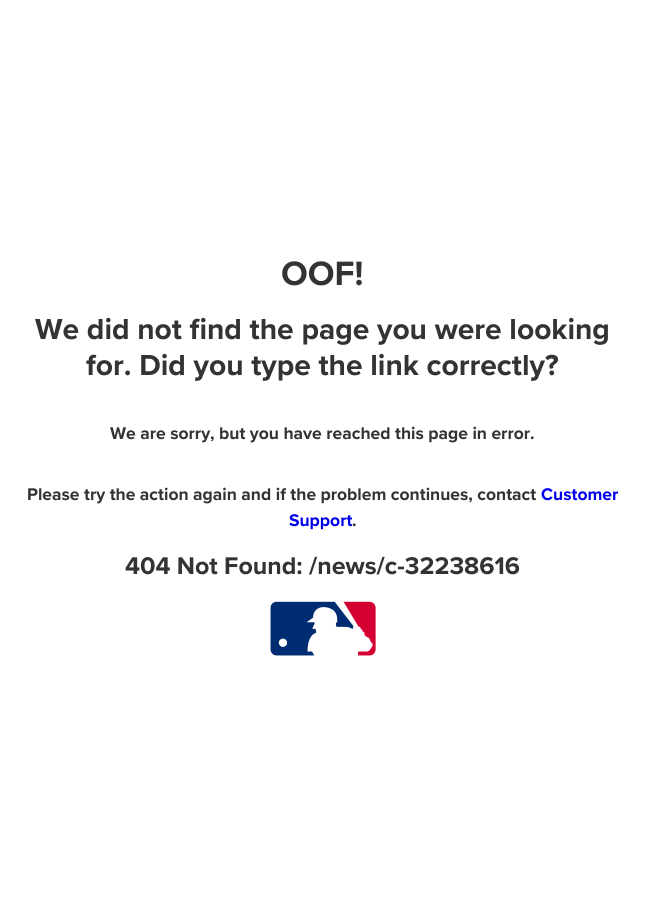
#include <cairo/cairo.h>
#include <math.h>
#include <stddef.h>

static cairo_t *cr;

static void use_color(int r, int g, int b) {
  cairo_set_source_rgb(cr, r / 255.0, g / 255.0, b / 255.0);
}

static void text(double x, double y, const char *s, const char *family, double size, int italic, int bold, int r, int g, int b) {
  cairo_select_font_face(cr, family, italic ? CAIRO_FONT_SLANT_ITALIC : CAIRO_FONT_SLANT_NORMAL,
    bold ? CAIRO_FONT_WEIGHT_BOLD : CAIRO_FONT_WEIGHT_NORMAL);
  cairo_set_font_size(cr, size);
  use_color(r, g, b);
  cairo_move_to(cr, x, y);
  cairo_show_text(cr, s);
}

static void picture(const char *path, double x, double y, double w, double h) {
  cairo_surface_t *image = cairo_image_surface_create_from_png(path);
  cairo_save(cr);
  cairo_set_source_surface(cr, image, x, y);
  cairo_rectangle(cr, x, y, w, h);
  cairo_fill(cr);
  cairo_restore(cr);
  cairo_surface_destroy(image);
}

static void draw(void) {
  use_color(255, 255, 255);
  cairo_paint(cr);
  picture("img_01.png", 270, 601, 106, 55);
  text(281, 285, "OOF!", "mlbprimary", 35, 0, 1, 51, 51, 51);
  text(35, 339, "We did not find the page you were looking", "mlbprimary", 30, 0, 1, 51, 51, 51);
  text(86, 375, "for. Did you type the link correctly?", "mlbprimary", 30, 0, 1, 51, 51, 51);
  text(110, 439, "We are sorry, but you have reached this page in error.", "mlbprimary", 17.5, 0, 1, 51, 51, 51);
  text(27, 500, "Please try the action again and if the problem continues, contact", "mlbprimary", 17.5, 0, 1, 51, 51, 51);
  text(541, 500, "Customer", "mlbprimary", 17.5, 0, 1, 0, 0, 238);
  text(289, 526, "Support", "mlbprimary", 17.5, 0, 1, 0, 0, 238);
  text(352, 526, ".", "mlbprimary", 17.5, 0, 1, 51, 51, 51);
  text(125, 574, "404 Not Found: /news/c-32238616", "mlbprimary", 25, 0, 1, 51, 51, 51);
}

int main(void) {
  cairo_surface_t *surface = cairo_image_surface_create(CAIRO_FORMAT_RGB24, 645, 912);
  cr = cairo_create(surface);
  cairo_font_options_t *options = cairo_font_options_create();
  cairo_font_options_set_hint_metrics(options, CAIRO_HINT_METRICS_OFF);
  cairo_font_options_set_hint_style(options, CAIRO_HINT_STYLE_NONE);
  cairo_set_font_options(cr, options);
  cairo_set_miter_limit(cr, 4);
  draw();
  cairo_surface_write_to_png(surface, "out.png");
  cairo_font_options_destroy(options);
  cairo_destroy(cr);
  cairo_surface_destroy(surface);
  return 0;
}
